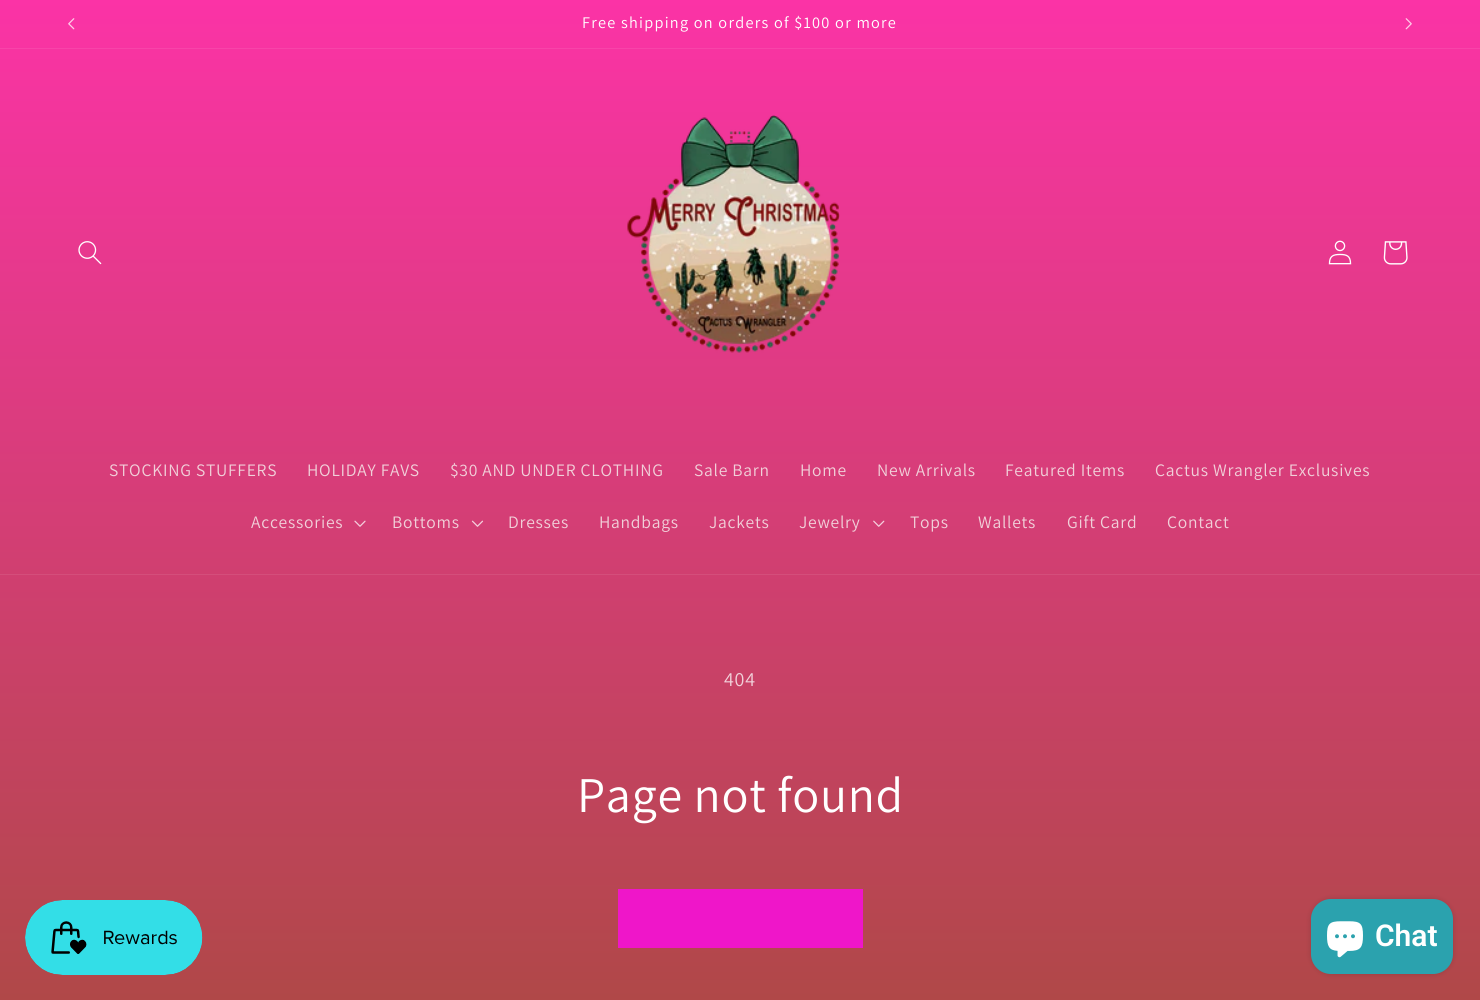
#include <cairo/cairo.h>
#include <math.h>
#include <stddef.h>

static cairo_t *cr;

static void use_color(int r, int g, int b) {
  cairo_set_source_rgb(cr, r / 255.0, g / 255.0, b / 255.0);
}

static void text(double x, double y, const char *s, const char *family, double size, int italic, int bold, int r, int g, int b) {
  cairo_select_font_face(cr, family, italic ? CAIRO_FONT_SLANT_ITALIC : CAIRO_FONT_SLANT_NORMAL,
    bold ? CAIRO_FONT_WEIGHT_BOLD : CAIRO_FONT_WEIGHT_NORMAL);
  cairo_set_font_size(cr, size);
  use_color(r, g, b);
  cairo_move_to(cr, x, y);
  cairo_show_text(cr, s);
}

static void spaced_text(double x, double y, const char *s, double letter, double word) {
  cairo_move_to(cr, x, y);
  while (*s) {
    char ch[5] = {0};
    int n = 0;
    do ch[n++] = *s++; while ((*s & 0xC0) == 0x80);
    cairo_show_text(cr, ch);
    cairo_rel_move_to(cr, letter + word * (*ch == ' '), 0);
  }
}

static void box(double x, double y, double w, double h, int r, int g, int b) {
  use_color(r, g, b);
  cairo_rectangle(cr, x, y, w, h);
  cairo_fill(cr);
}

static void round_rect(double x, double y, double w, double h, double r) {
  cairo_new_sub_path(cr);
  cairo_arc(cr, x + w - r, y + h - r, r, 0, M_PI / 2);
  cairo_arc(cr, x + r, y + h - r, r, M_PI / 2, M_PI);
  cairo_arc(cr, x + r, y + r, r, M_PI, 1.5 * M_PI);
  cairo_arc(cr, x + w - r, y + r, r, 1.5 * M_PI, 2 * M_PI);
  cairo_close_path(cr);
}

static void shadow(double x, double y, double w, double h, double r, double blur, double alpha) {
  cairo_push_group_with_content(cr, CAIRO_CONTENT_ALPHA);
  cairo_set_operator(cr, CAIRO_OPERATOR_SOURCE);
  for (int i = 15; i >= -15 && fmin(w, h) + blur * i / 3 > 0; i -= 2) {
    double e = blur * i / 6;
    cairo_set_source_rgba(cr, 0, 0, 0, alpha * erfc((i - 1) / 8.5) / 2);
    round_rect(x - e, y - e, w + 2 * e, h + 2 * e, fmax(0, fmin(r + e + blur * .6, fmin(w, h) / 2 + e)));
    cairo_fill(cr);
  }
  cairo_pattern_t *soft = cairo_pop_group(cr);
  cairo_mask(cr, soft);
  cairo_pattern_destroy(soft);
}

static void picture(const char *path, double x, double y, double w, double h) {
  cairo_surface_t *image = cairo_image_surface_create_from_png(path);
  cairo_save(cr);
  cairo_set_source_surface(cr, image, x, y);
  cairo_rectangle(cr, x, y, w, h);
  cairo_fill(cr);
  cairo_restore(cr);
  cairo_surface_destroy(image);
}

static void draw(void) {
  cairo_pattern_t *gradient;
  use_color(255, 255, 255);
  cairo_paint(cr);
  gradient = cairo_pattern_create_linear(740, 0, 740, 1000);
  cairo_pattern_add_color_stop_rgba(gradient, 0, 0.984, 0.2, 0.651, 1);
  cairo_pattern_add_color_stop_rgba(gradient, 1, 0.69, 0.282, 0.282, 1);
  cairo_pattern_add_color_stop_rgba(gradient, 1, 0.188, 0.569, 0.827, 1);
  cairo_set_source(cr, gradient);
  cairo_pattern_destroy(gradient);
  cairo_rectangle(cr, 0, 0, 1480, 1000);
  cairo_fill(cr);
  box(0, 48, 1480, 1, 248, 68, 169);
  picture("img_01.png", 68, 18, 7, 12);
  picture("img_02.png", 1405, 18, 7, 12);
  box(0, 574, 1480, 1, 212, 78, 123);
  picture("img_03.png", 78, 241, 24, 24);
  picture("img_04.png", 627, 115, 213, 238);
  picture("img_05.png", 1328, 240, 24, 25);
  picture("img_06.png", 1383, 241, 25, 24);
  picture("img_07.png", 354, 520, 12, 7);
  picture("img_08.png", 471, 520, 13, 7);
  picture("img_09.png", 873, 520, 12, 7);
  box(618, 889, 245, 59, 239, 22, 201);
  picture("img_10.png", 25, 900, 178, 75);
  use_color(0, 0, 0);
  shadow(1311, 899, 142, 75, 20, 3, 0.15);
  use_color(43, 162, 174);
  round_rect(1311, 899, 142, 75, 20);
  cairo_fill(cr);
  picture("img_11.png", 1327, 921, 36, 37);
  cairo_select_font_face(cr, "Assistant", CAIRO_FONT_SLANT_NORMAL, CAIRO_FONT_WEIGHT_NORMAL);
  cairo_set_font_size(cr, 16.25);
  use_color(255, 255, 255);
  spaced_text(582, 28, "Free shipping on orders of $100 or more", 1.25, 0);
  cairo_set_font_size(cr, 17.5);
  use_color(241, 208, 217);
  spaced_text(109, 476, "STOCKING STUFFERS", 0.75, 0);
  spaced_text(307, 476, "HOLIDAY FAVS", 0.75, 0);
  spaced_text(450, 476, "$30 AND UNDER CLOTHING", 0.75, 0);
  spaced_text(694, 476, "Sale Barn", 0.75, 0);
  spaced_text(800, 476, "Home", 0.75, 0);
  spaced_text(877, 476, "New Arrivals", 0.75, 0);
  spaced_text(1005, 476, "Featured Items", 0.75, 0);
  spaced_text(1155, 476, "Cactus Wrangler Exclusives", 0.75, 0);
  spaced_text(251, 528, "Accessories", 0.75, 0);
  spaced_text(392, 528, "Bottoms", 0.75, 0);
  spaced_text(508, 528, "Dresses", 0.75, 0);
  spaced_text(599, 528, "Handbags", 0.75, 0);
  spaced_text(709, 528, "Jackets", 0.75, 0);
  spaced_text(799, 528, "Jewelry", 0.75, 0);
  spaced_text(910, 528, "Tops", 0.75, 0);
  spaced_text(978, 528, "Wallets", 0.75, 0);
  spaced_text(1067, 528, "Gift Card", 0.75, 0);
  spaced_text(1167, 528, "Contact", 0.75, 0);
  cairo_set_font_size(cr, 20);
  spaced_text(724, 686, "404", 0.75, 0);
  cairo_set_font_size(cr, 50);
  use_color(255, 255, 255);
  spaced_text(577, 812, "Page not found", 0.75, 0);
  text(1375, 946, "Chat", "Roboto SemiBold", 30, 0, 0, 255, 255, 255);
}

int main(void) {
  cairo_surface_t *surface = cairo_image_surface_create(CAIRO_FORMAT_RGB24, 1480, 1000);
  cr = cairo_create(surface);
  cairo_font_options_t *options = cairo_font_options_create();
  cairo_font_options_set_hint_metrics(options, CAIRO_HINT_METRICS_OFF);
  cairo_font_options_set_hint_style(options, CAIRO_HINT_STYLE_NONE);
  cairo_set_font_options(cr, options);
  cairo_set_miter_limit(cr, 4);
  draw();
  cairo_surface_write_to_png(surface, "out.png");
  cairo_font_options_destroy(options);
  cairo_destroy(cr);
  cairo_surface_destroy(surface);
  return 0;
}
